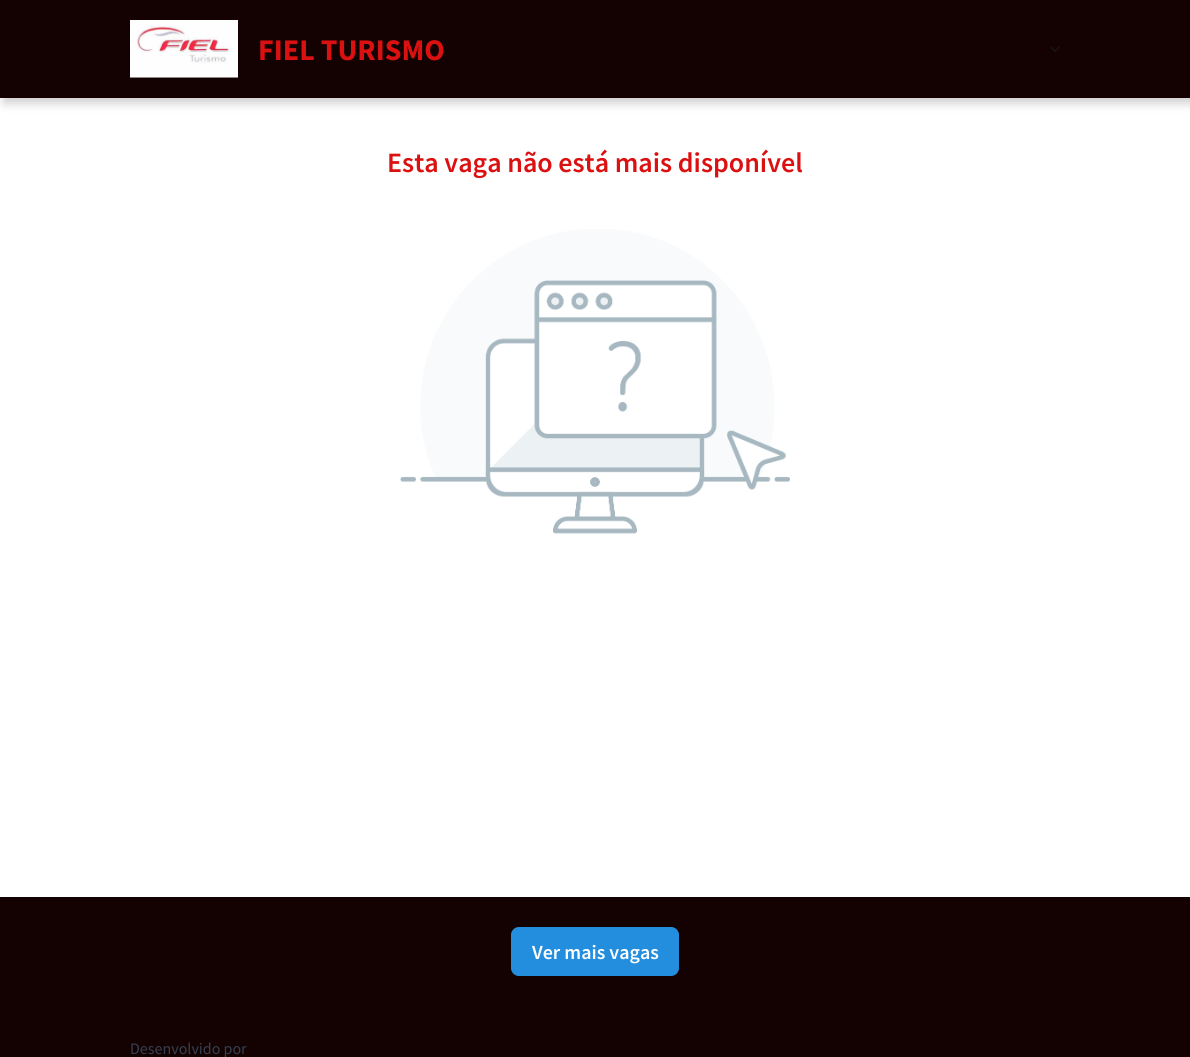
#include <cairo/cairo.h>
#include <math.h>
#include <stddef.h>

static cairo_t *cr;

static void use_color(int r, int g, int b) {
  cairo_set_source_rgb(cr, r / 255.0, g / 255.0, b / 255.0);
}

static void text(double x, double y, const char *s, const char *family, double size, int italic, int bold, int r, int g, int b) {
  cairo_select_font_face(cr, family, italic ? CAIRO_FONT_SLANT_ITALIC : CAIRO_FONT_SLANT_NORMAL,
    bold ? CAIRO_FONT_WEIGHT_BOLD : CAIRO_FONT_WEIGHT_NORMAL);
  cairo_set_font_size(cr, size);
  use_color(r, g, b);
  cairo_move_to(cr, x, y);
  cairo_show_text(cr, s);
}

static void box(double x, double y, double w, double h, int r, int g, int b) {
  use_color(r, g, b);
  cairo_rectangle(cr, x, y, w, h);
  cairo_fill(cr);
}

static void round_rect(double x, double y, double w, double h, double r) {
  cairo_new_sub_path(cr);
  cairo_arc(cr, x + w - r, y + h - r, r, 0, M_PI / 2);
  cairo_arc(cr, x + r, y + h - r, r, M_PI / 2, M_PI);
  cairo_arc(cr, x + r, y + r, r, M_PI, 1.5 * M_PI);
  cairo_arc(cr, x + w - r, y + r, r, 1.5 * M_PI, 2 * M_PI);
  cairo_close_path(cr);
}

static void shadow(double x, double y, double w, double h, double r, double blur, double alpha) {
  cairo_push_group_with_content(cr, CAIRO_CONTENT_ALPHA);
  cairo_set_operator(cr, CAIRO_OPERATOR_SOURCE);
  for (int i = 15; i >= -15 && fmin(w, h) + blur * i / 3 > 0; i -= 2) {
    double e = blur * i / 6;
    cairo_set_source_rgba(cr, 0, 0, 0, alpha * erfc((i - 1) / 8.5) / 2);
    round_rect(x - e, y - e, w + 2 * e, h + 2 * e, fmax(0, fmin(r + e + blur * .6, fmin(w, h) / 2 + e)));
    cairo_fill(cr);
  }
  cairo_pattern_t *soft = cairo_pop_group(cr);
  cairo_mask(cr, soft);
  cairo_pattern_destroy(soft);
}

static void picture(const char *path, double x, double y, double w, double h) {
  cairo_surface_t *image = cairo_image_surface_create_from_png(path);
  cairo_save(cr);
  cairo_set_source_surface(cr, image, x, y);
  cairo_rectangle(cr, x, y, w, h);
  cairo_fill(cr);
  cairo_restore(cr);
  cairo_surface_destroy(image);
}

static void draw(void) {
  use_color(255, 255, 255);
  cairo_paint(cr);
  use_color(0, 0, 0);
  shadow(4, 5, 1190, 98, 0, 5, 0.2);
  box(0, 0, 1190, 98, 20, 1, 1);
  picture("img_01.png", 130, 20, 108, 58);
  picture("img_02.png", 1050, 46, 10, 6);
  picture("img_03.png", 400, 229, 390, 305);
  box(0, 897, 1190, 160, 20, 1, 1);
  use_color(35, 142, 222);
  round_rect(511.5, 927.5, 167, 48, 7.5);
  cairo_fill_preserve(cr);
  cairo_set_line_width(cr, 1);
  cairo_stroke(cr);
  text(258, 60, "FIEL TURISMO", "Source Sans Pro", 30, 0, 1, 219, 17, 17);
  text(387, 172, "Esta vaga não está mais disponível", "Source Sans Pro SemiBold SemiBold", 28, 0, 0, 219, 17, 17);
  text(532, 959, "Ver mais vagas", "Source Sans Pro SemiBold SemiBold", 20, 0, 0, 255, 255, 255);
  text(130, 1054, "Desenvolvido por", "Source Sans Pro", 16, 0, 0, 53, 64, 82);
}

int main(void) {
  cairo_surface_t *surface = cairo_image_surface_create(CAIRO_FORMAT_RGB24, 1190, 1057);
  cr = cairo_create(surface);
  cairo_font_options_t *options = cairo_font_options_create();
  cairo_font_options_set_hint_metrics(options, CAIRO_HINT_METRICS_OFF);
  cairo_font_options_set_hint_style(options, CAIRO_HINT_STYLE_NONE);
  cairo_set_font_options(cr, options);
  cairo_set_miter_limit(cr, 4);
  draw();
  cairo_surface_write_to_png(surface, "out.png");
  cairo_font_options_destroy(options);
  cairo_destroy(cr);
  cairo_surface_destroy(surface);
  return 0;
}
